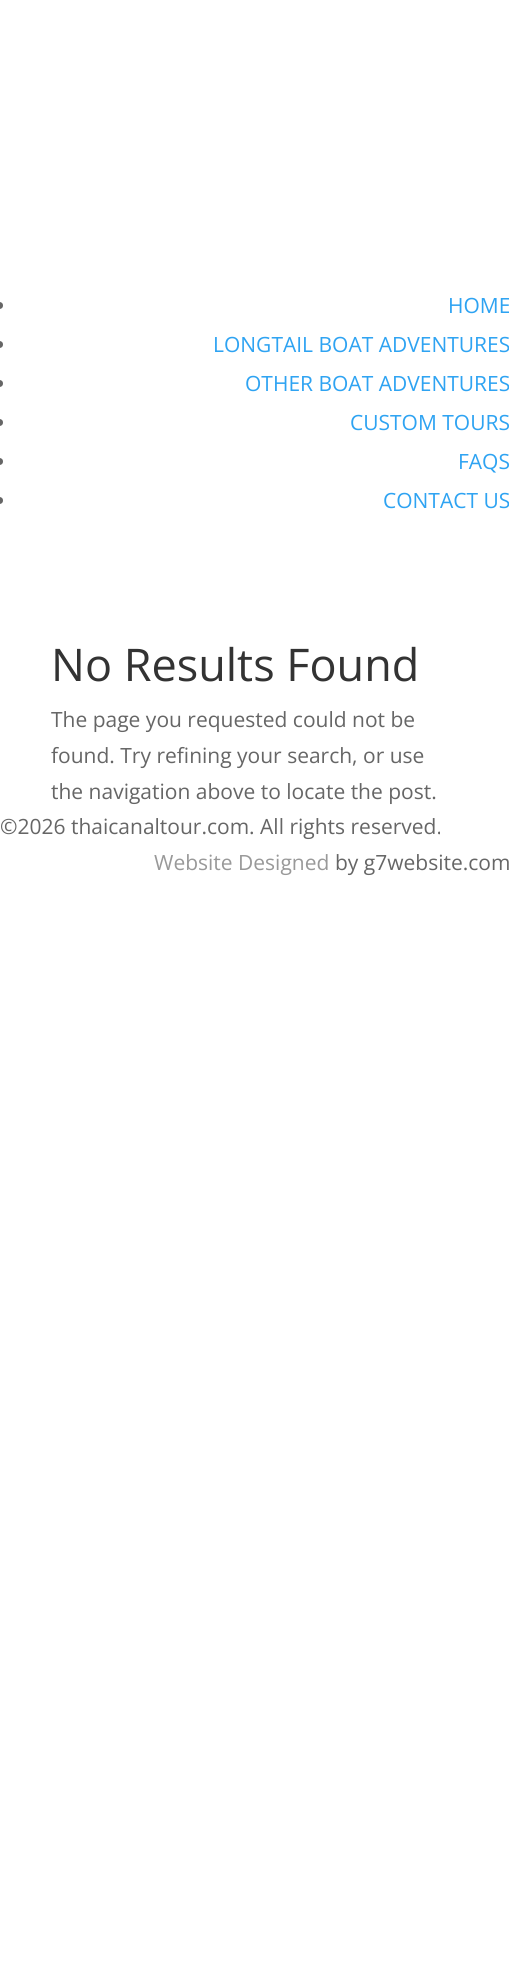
#include <cairo/cairo.h>
#include <math.h>
#include <stddef.h>

static cairo_t *cr;

static void use_color(int r, int g, int b) {
  cairo_set_source_rgb(cr, r / 255.0, g / 255.0, b / 255.0);
}

static void text(double x, double y, const char *s, const char *family, double size, int italic, int bold, int r, int g, int b) {
  cairo_select_font_face(cr, family, italic ? CAIRO_FONT_SLANT_ITALIC : CAIRO_FONT_SLANT_NORMAL,
    bold ? CAIRO_FONT_WEIGHT_BOLD : CAIRO_FONT_WEIGHT_NORMAL);
  cairo_set_font_size(cr, size);
  use_color(r, g, b);
  cairo_move_to(cr, x, y);
  cairo_show_text(cr, s);
}

static void draw(void) {
  use_color(255, 255, 255);
  cairo_paint(cr);
  use_color(102, 102, 102);
  cairo_arc(cr, -0.5, 305.5, 3.5, 0, 2 * M_PI);
  cairo_fill(cr);
  cairo_arc(cr, -0.5, 344.5, 3.5, 0, 2 * M_PI);
  cairo_fill(cr);
  cairo_arc(cr, -0.5, 383.5, 3.5, 0, 2 * M_PI);
  cairo_fill(cr);
  cairo_arc(cr, -0.5, 422.5, 3.5, 0, 2 * M_PI);
  cairo_fill(cr);
  cairo_arc(cr, -0.5, 461.5, 3.5, 0, 2 * M_PI);
  cairo_fill(cr);
  cairo_arc(cr, -0.5, 500.5, 3.5, 0, 2 * M_PI);
  cairo_fill(cr);
  text(448, 313, "HOME", "Open Sans", 21, 0, 0, 46, 163, 242);
  text(213, 352, "LONGTAIL BOAT ADVENTURES", "Open Sans", 21, 0, 0, 46, 163, 242);
  text(245, 391, "OTHER BOAT ADVENTURES", "Open Sans", 21, 0, 0, 46, 163, 242);
  text(350, 430, "CUSTOM TOURS", "Open Sans", 21, 0, 0, 46, 163, 242);
  text(458, 469, "FAQS", "Open Sans", 21, 0, 0, 46, 163, 242);
  text(383, 508, "CONTACT US", "Open Sans", 21, 0, 0, 46, 163, 242);
  text(51, 681, "No Results Found", "Open Sans", 45, 0, 0, 51, 51, 51);
  text(51, 727, "The page you requested could not be", "Open Sans", 21, 0, 0, 102, 102, 102);
  text(51, 763, "found. Try refining your search, or use", "Open Sans", 21, 0, 0, 102, 102, 102);
  text(51, 799, "the navigation above to locate the post.", "Open Sans", 21, 0, 0, 102, 102, 102);
  text(0, 834, "©2026 thaicanaltour.com. All rights reserved.", "Open Sans", 21, 0, 0, 102, 102, 102);
  text(154, 870, "Website Designed", "Open Sans", 21, 0, 0, 153, 153, 153);
  text(335, 870, "by g7website.com", "Open Sans", 21, 0, 0, 102, 102, 102);
}

int main(void) {
  cairo_surface_t *surface = cairo_image_surface_create(CAIRO_FORMAT_RGB24, 509, 1975);
  cr = cairo_create(surface);
  cairo_font_options_t *options = cairo_font_options_create();
  cairo_font_options_set_hint_metrics(options, CAIRO_HINT_METRICS_OFF);
  cairo_font_options_set_hint_style(options, CAIRO_HINT_STYLE_NONE);
  cairo_set_font_options(cr, options);
  cairo_set_miter_limit(cr, 4);
  draw();
  cairo_surface_write_to_png(surface, "out.png");
  cairo_font_options_destroy(options);
  cairo_destroy(cr);
  cairo_surface_destroy(surface);
  return 0;
}
